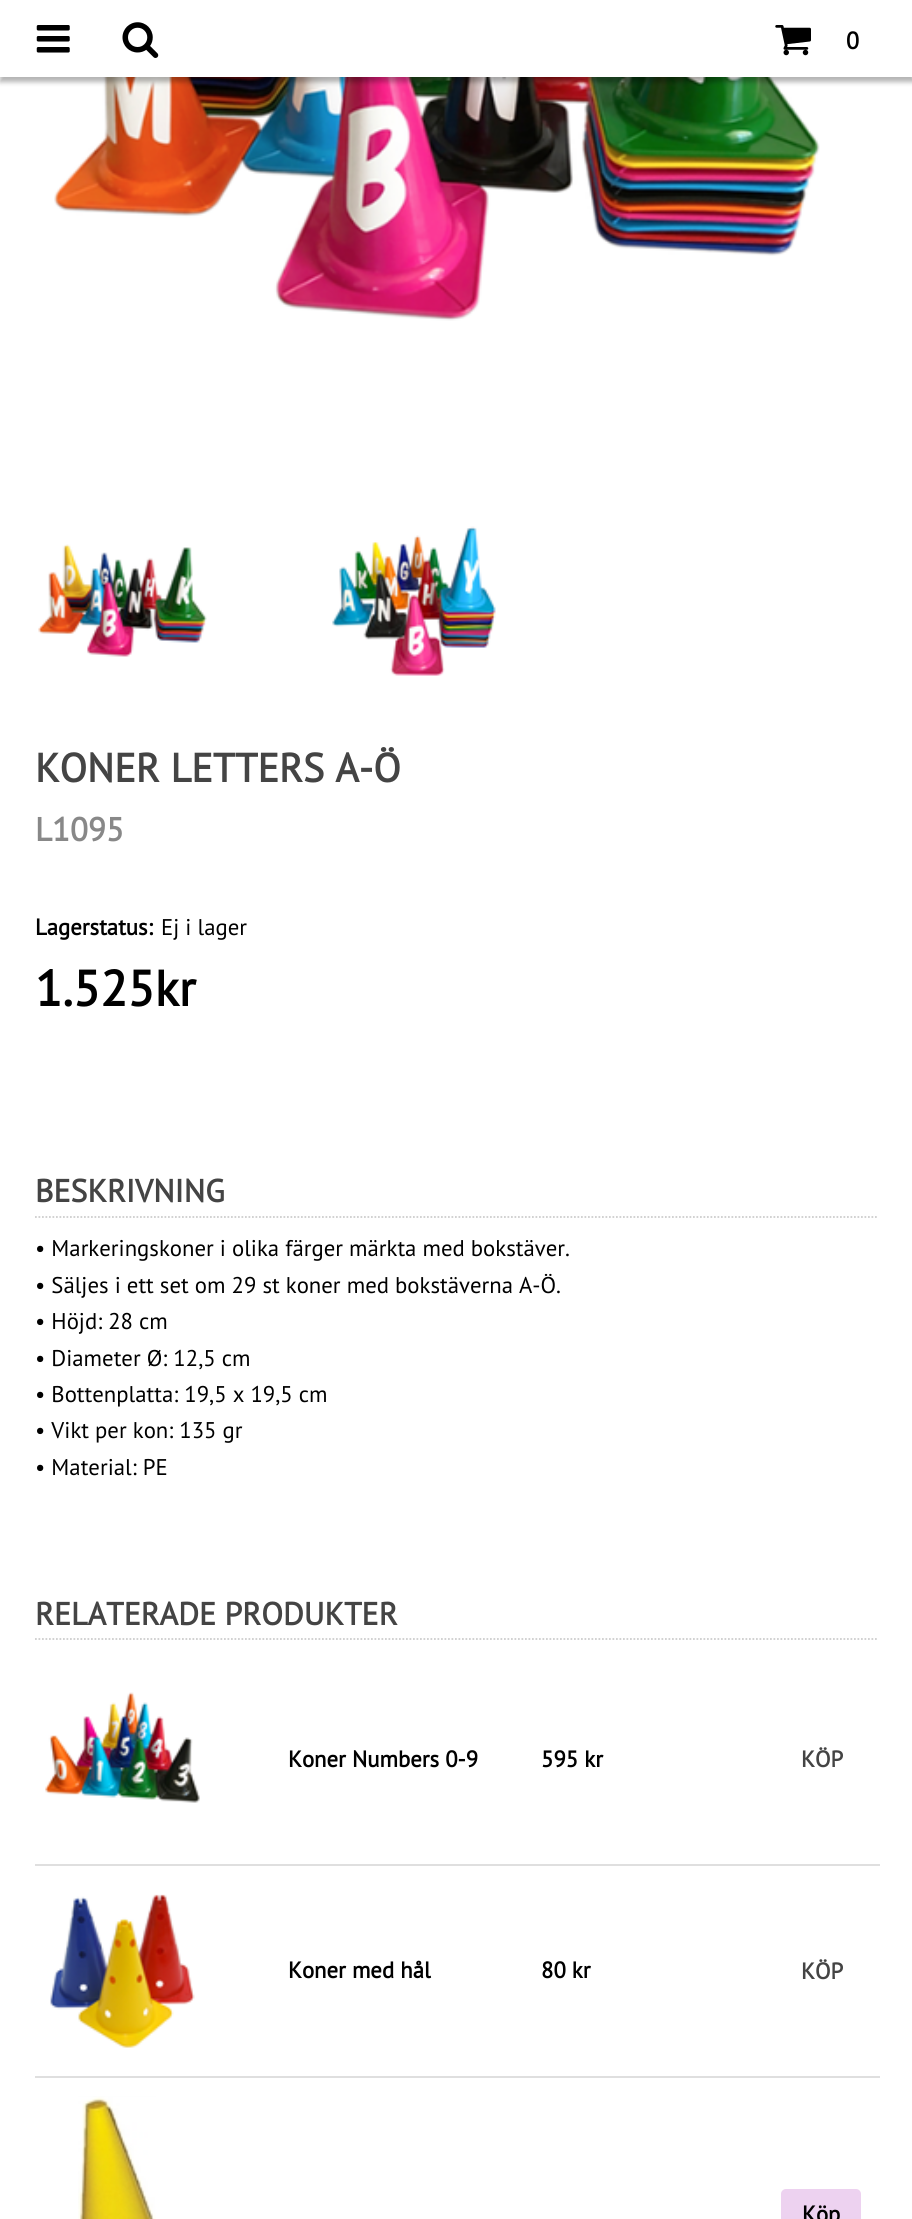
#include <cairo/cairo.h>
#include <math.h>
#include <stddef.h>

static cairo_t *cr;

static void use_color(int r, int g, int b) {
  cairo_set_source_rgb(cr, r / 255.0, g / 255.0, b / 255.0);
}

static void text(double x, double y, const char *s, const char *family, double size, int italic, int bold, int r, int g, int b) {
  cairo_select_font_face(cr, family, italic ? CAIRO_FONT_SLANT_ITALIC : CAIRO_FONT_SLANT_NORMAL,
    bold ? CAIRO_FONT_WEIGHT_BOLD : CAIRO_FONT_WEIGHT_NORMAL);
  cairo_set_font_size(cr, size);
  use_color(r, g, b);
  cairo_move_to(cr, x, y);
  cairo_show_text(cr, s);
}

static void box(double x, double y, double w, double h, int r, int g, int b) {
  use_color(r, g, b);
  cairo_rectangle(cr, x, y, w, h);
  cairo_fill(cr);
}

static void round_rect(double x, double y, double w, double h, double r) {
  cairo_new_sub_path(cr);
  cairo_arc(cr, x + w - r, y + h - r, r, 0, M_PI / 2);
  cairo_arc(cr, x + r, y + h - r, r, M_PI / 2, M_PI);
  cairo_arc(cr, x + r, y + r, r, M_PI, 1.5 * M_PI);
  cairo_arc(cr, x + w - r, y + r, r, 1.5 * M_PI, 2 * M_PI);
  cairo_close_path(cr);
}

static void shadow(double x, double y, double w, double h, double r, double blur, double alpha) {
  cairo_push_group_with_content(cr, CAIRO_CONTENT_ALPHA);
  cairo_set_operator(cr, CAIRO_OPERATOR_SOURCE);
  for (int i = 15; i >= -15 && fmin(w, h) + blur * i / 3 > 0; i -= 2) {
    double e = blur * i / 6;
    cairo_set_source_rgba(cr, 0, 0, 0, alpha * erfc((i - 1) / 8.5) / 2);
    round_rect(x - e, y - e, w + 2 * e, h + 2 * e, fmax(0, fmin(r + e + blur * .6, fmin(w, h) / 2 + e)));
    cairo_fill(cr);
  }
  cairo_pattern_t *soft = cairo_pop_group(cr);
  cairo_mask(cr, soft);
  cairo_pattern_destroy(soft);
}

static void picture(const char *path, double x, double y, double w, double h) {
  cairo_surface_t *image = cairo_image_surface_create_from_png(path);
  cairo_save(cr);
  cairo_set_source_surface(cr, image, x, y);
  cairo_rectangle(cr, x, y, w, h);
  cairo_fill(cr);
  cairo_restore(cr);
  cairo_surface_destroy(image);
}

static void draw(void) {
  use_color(255, 255, 255);
  cairo_paint(cr);
  picture("img_04.png", 54, 77, 766, 244);
  use_color(0, 0, 0);
  shadow(0, 5, 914, 77, 0, 2.5, 0.3);
  box(0, 0, 912, 77, 255, 255, 255);
  picture("img_01.png", 36, 25, 34, 28);
  picture("img_02.png", 122, 22, 37, 36);
  picture("img_03.png", 775, 25, 36, 31);
  picture("img_05.png", 38, 544, 169, 113);
  picture("img_06.png", 332, 526, 164, 150);
  cairo_new_path(cr);
  cairo_move_to(cr, 35, 1217);
  cairo_line_to(cr, 878.5, 1217);
  use_color(205, 205, 205);
  cairo_set_line_width(cr, 1.8);
  cairo_set_dash(cr, (double[]){1.75, 1.75}, 2, 0);
  cairo_stroke(cr);
  cairo_new_path(cr);
  cairo_move_to(cr, 35, 1639);
  cairo_line_to(cr, 878.5, 1639);
  cairo_stroke(cr);
  box(35, 1864, 845, 2, 223, 223, 223);
  picture("img_07.png", 45, 1692, 155, 111);
  box(35, 2076, 845, 2, 223, 223, 223);
  picture("img_08.png", 50, 1894, 145, 154);
  picture("img_09.png", 78, 2096, 78, 123);
  use_color(237, 210, 240);
  round_rect(781, 2189, 80, 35, 5);
  cairo_fill(cr);
  text(846, 49, "0", "PT Sans", 24, 0, 1, 0, 0, 0);
  text(35, 782, "KONER LETTERS A-Ö", "PT Sans", 40.25, 0, 1, 68, 68, 68);
  text(35, 841, "L1095", "PT Sans", 33, 0, 1, 136, 136, 136);
  text(35, 935, "Lagerstatus:", "PT Sans", 22.75, 0, 1, 0, 0, 0);
  text(161, 935, "Ej i lager", "PT Sans", 22.75, 0, 0, 0, 0, 0);
  text(35, 1006, "1.525kr", "PT Sans", 50, 0, 1, 0, 0, 0);
  text(35, 1202, "BESKRIVNING", "PT Sans", 31.8, 0, 1, 68, 68, 68);
  text(35, 1256, "• Markeringskoner i olika färger märkta med bokstäver.", "PT Sans", 22.75, 0, 0, 0, 0, 0);
  text(35, 1293, "• Säljes i ett set om 29 st koner med bokstäverna A-Ö.", "PT Sans", 22.75, 0, 0, 0, 0, 0);
  text(35, 1329, "• Höjd: 28 cm", "PT Sans", 22.75, 0, 0, 0, 0, 0);
  text(35, 1366, "• Diameter Ø: 12,5 cm", "PT Sans", 22.75, 0, 0, 0, 0, 0);
  text(35, 1402, "• Bottenplatta: 19,5 x 19,5 cm", "PT Sans", 22.75, 0, 0, 0, 0, 0);
  text(35, 1438, "• Vikt per kon: 135 gr", "PT Sans", 22.75, 0, 0, 0, 0, 0);
  text(35, 1475, "• Material: PE", "PT Sans", 22.75, 0, 0, 0, 0, 0);
  text(35, 1625, "RELATERADE PRODUKTER", "PT Sans", 31.8, 0, 1, 68, 68, 68);
  text(288, 1767, "Koner Numbers 0-9", "PT Sans", 22.75, 0, 1, 0, 0, 0);
  text(541, 1767, "595 kr", "PT Sans", 22.75, 0, 1, 0, 0, 0);
  text(801, 1767, "KÖP", "PT Sans", 22.75, 0, 1, 68, 68, 68);
  text(288, 1978, "Koner med hål", "PT Sans", 22.75, 0, 1, 0, 0, 0);
  text(541, 1978, "80 kr", "PT Sans", 22.75, 0, 1, 0, 0, 0);
  text(801, 1979, "KÖP", "PT Sans", 22.75, 0, 1, 68, 68, 68);
  text(802, 2222, "Köp", "PT Sans", 22.75, 0, 1, 0, 0, 0);
}

int main(void) {
  cairo_surface_t *surface = cairo_image_surface_create(CAIRO_FORMAT_RGB24, 912, 2219);
  cr = cairo_create(surface);
  cairo_font_options_t *options = cairo_font_options_create();
  cairo_font_options_set_hint_metrics(options, CAIRO_HINT_METRICS_OFF);
  cairo_font_options_set_hint_style(options, CAIRO_HINT_STYLE_NONE);
  cairo_set_font_options(cr, options);
  cairo_set_miter_limit(cr, 4);
  draw();
  cairo_surface_write_to_png(surface, "out.png");
  cairo_font_options_destroy(options);
  cairo_destroy(cr);
  cairo_surface_destroy(surface);
  return 0;
}
